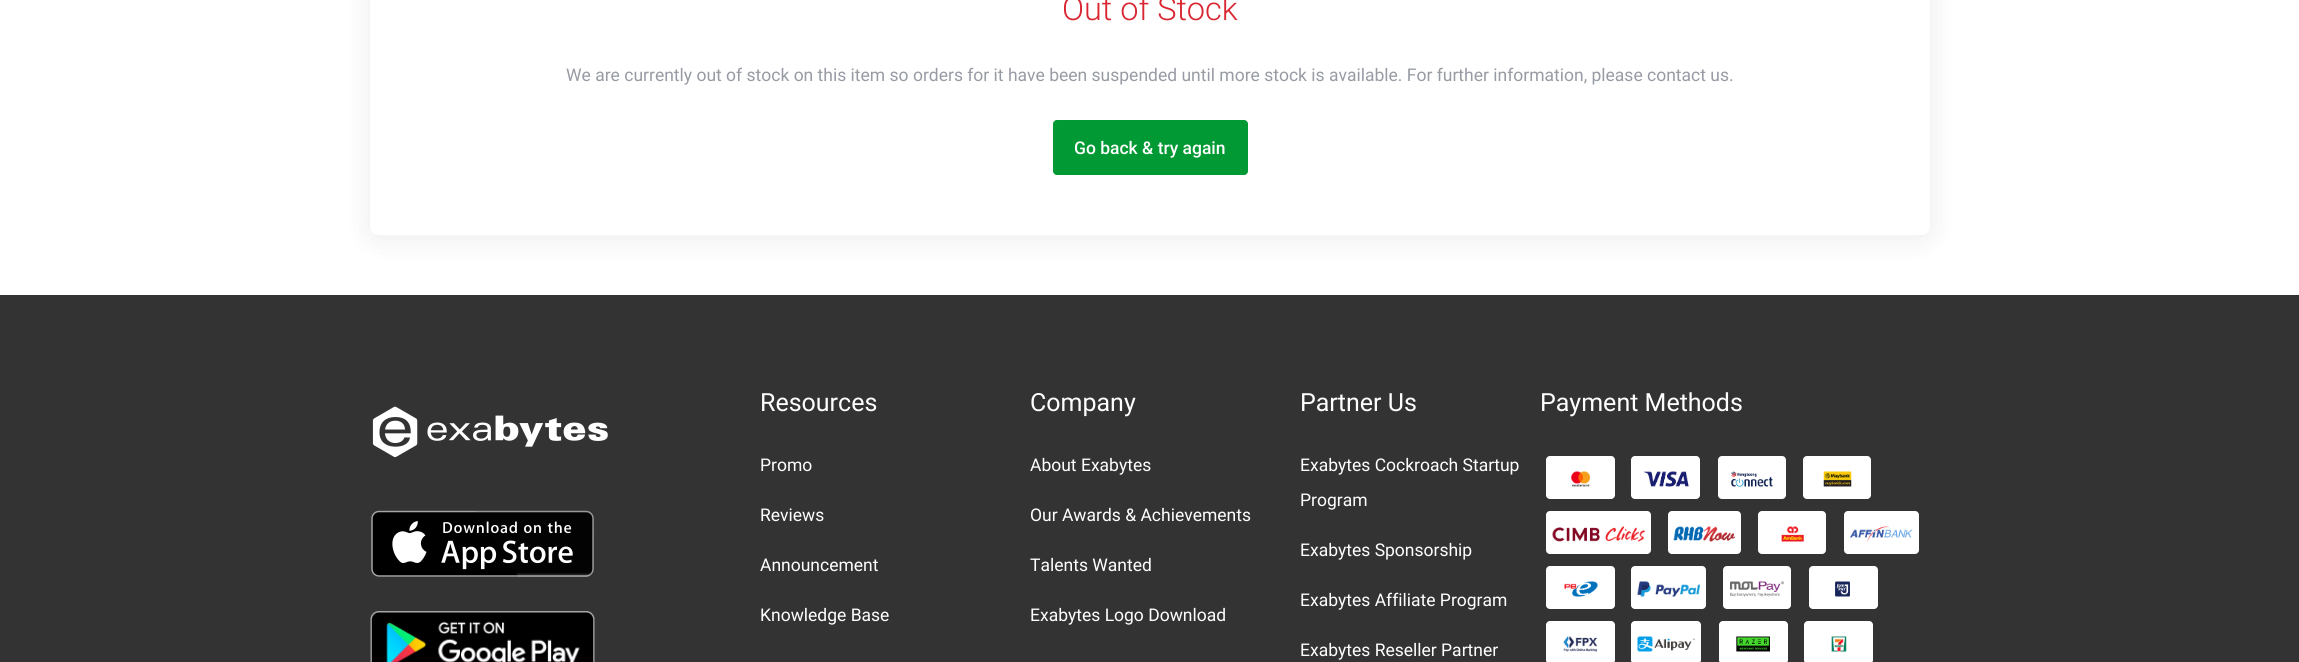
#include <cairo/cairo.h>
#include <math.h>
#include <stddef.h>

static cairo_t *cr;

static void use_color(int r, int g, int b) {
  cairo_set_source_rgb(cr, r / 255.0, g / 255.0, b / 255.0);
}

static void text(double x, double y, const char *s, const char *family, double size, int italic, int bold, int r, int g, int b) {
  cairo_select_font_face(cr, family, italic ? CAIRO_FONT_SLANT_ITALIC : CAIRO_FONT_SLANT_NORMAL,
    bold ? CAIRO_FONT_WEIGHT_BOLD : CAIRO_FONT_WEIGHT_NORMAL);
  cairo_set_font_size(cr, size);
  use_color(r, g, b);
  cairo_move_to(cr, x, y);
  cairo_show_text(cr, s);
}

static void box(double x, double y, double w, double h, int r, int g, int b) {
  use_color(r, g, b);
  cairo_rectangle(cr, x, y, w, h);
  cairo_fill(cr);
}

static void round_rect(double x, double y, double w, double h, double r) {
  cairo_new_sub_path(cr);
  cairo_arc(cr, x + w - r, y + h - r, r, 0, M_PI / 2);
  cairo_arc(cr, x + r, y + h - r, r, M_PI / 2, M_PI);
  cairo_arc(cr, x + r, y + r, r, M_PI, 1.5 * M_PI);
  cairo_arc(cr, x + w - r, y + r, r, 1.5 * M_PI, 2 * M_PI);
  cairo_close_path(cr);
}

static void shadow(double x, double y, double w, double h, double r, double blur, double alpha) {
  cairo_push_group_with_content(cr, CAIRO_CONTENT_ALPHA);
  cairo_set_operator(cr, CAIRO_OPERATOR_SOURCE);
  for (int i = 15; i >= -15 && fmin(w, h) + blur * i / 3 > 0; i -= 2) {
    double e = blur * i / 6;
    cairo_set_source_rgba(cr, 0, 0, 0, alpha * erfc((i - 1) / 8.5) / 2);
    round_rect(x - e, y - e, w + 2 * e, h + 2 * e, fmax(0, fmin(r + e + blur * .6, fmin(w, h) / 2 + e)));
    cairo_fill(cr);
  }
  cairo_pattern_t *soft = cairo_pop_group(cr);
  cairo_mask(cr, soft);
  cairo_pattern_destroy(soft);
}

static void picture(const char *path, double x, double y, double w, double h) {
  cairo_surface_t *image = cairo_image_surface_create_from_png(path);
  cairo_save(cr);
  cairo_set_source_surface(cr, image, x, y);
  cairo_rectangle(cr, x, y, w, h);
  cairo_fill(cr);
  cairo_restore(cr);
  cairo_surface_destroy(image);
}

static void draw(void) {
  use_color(255, 255, 255);
  cairo_paint(cr);
  use_color(0, 0, 0);
  shadow(370, -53, 1560, 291, 8, 15, 0.08);
  use_color(255, 255, 255);
  round_rect(370, -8, 1560, 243, 8);
  cairo_fill(cr);
  use_color(0, 153, 51);
  round_rect(1053.5, 120.5, 194, 54, 3.5);
  cairo_fill_preserve(cr);
  cairo_set_line_width(cr, 1);
  cairo_stroke(cr);
  box(0, 295, 2299, 367, 51, 51, 51);
  picture("img_01.png", 372, 406, 236, 52);
  picture("img_02.png", 371, 510, 223, 67);
  picture("img_03.png", 370, 611, 225, 51);
  use_color(255, 255, 255);
  round_rect(1546, 456, 69, 43, 4);
  cairo_fill(cr);
  picture("img_04.png", 1571, 471, 19, 16);
  round_rect(1631, 456, 69, 43, 4);
  cairo_fill(cr);
  picture("img_05.png", 1643, 471, 46, 16);
  round_rect(1718, 456, 68, 43, 4);
  cairo_fill(cr);
  picture("img_06.png", 1731, 471, 42, 16);
  round_rect(1803, 456, 68, 43, 4);
  cairo_fill(cr);
  picture("img_07.png", 1823, 471, 29, 16);
  round_rect(1546, 511, 105, 43, 4);
  cairo_fill(cr);
  picture("img_08.png", 1552, 526, 93, 16);
  round_rect(1668, 511, 73, 43, 4);
  cairo_fill(cr);
  picture("img_09.png", 1673, 526, 62, 16);
  round_rect(1758, 511, 68, 43, 4);
  cairo_fill(cr);
  picture("img_10.png", 1781, 526, 23, 16);
  round_rect(1844, 511, 75, 43, 4);
  cairo_fill(cr);
  picture("img_11.png", 1850, 526, 63, 16);
  round_rect(1546, 566, 69, 43, 4);
  cairo_fill(cr);
  picture("img_12.png", 1564, 581, 34, 16);
  round_rect(1631, 566, 75, 43, 4);
  cairo_fill(cr);
  picture("img_13.png", 1637, 581, 63, 16);
  round_rect(1723, 566, 68, 43, 4);
  cairo_fill(cr);
  picture("img_14.png", 1730, 581, 54, 16);
  round_rect(1809, 566, 69, 43, 4);
  cairo_fill(cr);
  picture("img_15.png", 1835, 581, 15, 16);
  round_rect(1546, 621, 69, 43, 4);
  cairo_fill(cr);
  picture("img_16.png", 1563, 636, 35, 16);
  round_rect(1631, 621, 70, 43, 4);
  cairo_fill(cr);
  picture("img_17.png", 1637, 636, 58, 16);
  round_rect(1719, 621, 69, 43, 4);
  cairo_fill(cr);
  picture("img_18.png", 1736, 636, 34, 16);
  round_rect(1804, 621, 69, 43, 4);
  cairo_fill(cr);
  picture("img_19.png", 1831, 636, 16, 16);
  text(1062, 20, "Out of Stock", "Roboto Light", 32.5, 0, 0, 217, 38, 50);
  text(566, 81, "We are currently out of stock on this item so orders for it have been suspended until more stock is available. For further information, please contact us.", "Roboto", 17.5, 0, 0, 151, 155, 164);
  text(1074, 154, "Go back & try again", "Roboto Medium", 17.5, 0, 0, 255, 255, 255);
  text(760, 411, "Resources", "Roboto", 25, 0, 0, 255, 255, 255);
  text(760, 471, "Promo", "Roboto", 17.5, 0, 0, 255, 255, 255);
  text(760, 521, "Reviews", "Roboto", 17.5, 0, 0, 255, 255, 255);
  text(760, 571, "Announcement", "Roboto", 17.5, 0, 0, 255, 255, 255);
  text(760, 621, "Knowledge Base", "Roboto", 17.5, 0, 0, 255, 255, 255);
  text(1030, 411, "Company", "Roboto", 25, 0, 0, 255, 255, 255);
  text(1030, 471, "About Exabytes", "Roboto", 17.5, 0, 0, 255, 255, 255);
  text(1030, 521, "Our Awards & Achievements", "Roboto", 17.5, 0, 0, 255, 255, 255);
  text(1030, 571, "Talents Wanted", "Roboto", 17.5, 0, 0, 255, 255, 255);
  text(1030, 621, "Exabytes Logo Download", "Roboto", 17.5, 0, 0, 255, 255, 255);
  text(1300, 411, "Partner Us", "Roboto", 25, 0, 0, 255, 255, 255);
  text(1300, 471, "Exabytes Cockroach Startup", "Roboto", 17.5, 0, 0, 255, 255, 255);
  text(1300, 506, "Program", "Roboto", 17.5, 0, 0, 255, 255, 255);
  text(1300, 556, "Exabytes Sponsorship", "Roboto", 17.5, 0, 0, 255, 255, 255);
  text(1300, 606, "Exabytes Affiliate Program", "Roboto", 17.5, 0, 0, 255, 255, 255);
  text(1300, 656, "Exabytes Reseller Partner", "Roboto", 17.5, 0, 0, 255, 255, 255);
  text(1540, 411, "Payment Methods", "Roboto", 25, 0, 0, 255, 255, 255);
}

int main(void) {
  cairo_surface_t *surface = cairo_image_surface_create(CAIRO_FORMAT_RGB24, 2299, 662);
  cr = cairo_create(surface);
  cairo_font_options_t *options = cairo_font_options_create();
  cairo_font_options_set_hint_metrics(options, CAIRO_HINT_METRICS_OFF);
  cairo_font_options_set_hint_style(options, CAIRO_HINT_STYLE_NONE);
  cairo_set_font_options(cr, options);
  cairo_set_miter_limit(cr, 4);
  draw();
  cairo_surface_write_to_png(surface, "out.png");
  cairo_font_options_destroy(options);
  cairo_destroy(cr);
  cairo_surface_destroy(surface);
  return 0;
}
